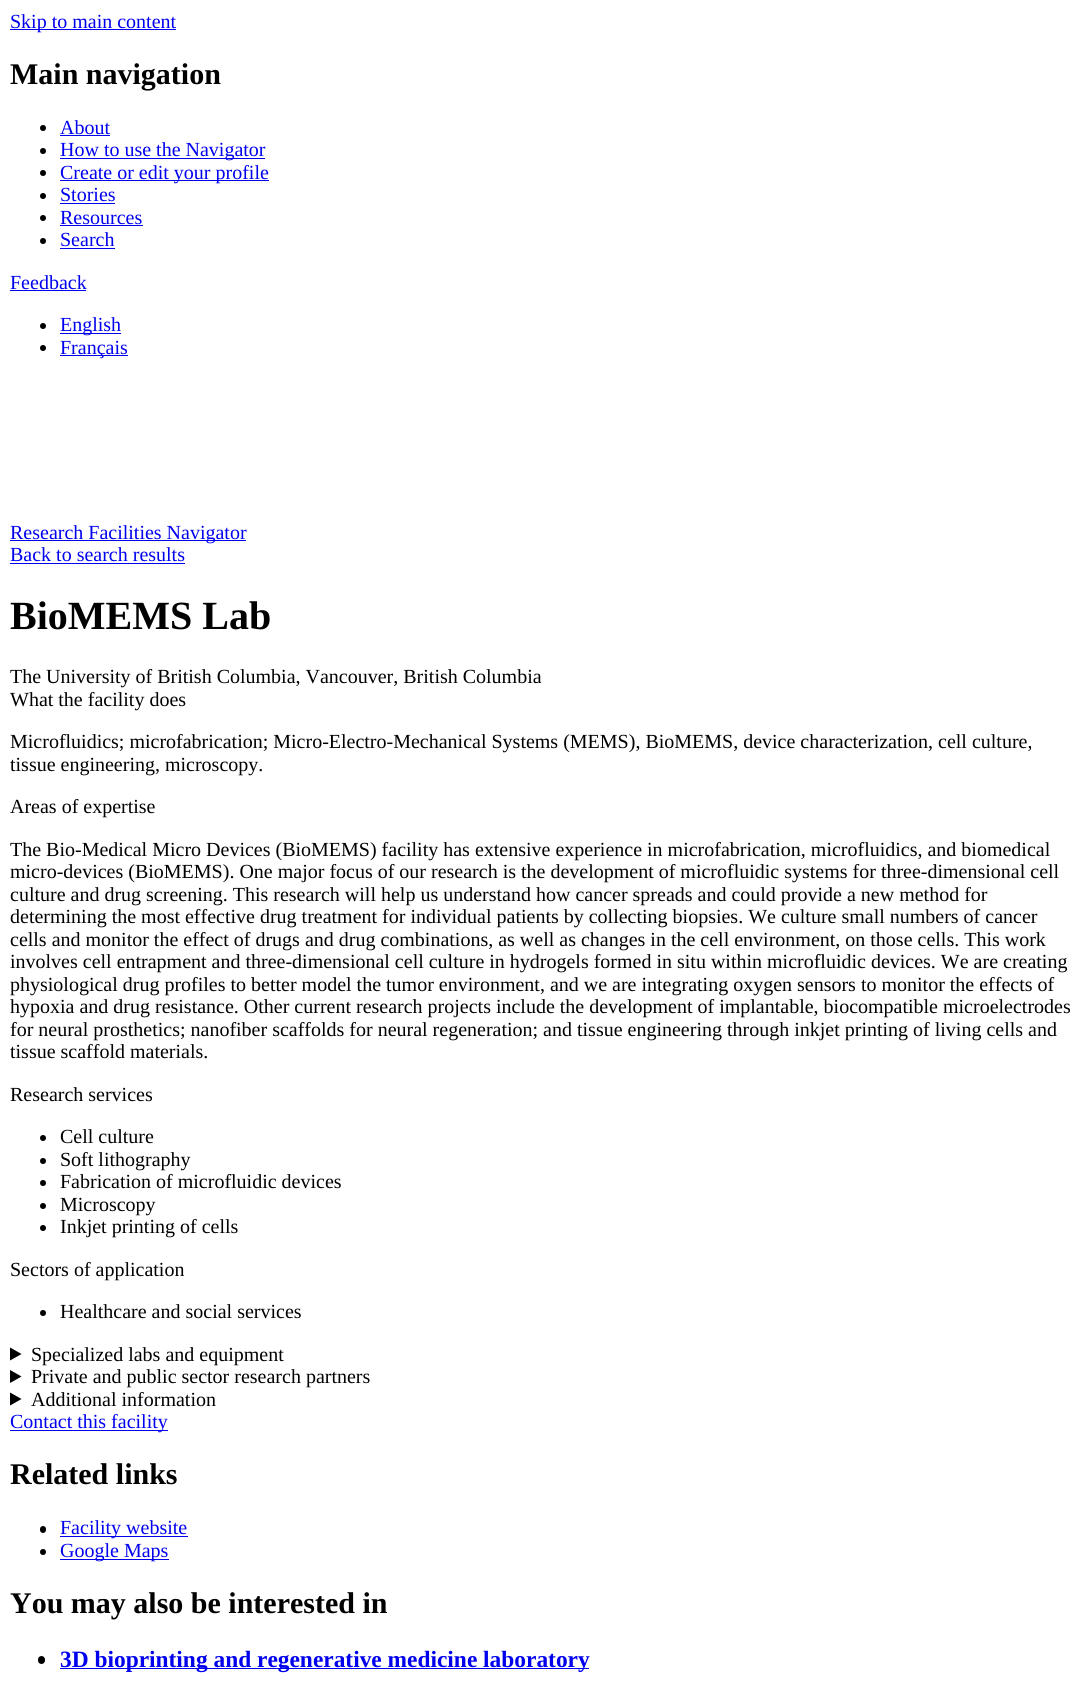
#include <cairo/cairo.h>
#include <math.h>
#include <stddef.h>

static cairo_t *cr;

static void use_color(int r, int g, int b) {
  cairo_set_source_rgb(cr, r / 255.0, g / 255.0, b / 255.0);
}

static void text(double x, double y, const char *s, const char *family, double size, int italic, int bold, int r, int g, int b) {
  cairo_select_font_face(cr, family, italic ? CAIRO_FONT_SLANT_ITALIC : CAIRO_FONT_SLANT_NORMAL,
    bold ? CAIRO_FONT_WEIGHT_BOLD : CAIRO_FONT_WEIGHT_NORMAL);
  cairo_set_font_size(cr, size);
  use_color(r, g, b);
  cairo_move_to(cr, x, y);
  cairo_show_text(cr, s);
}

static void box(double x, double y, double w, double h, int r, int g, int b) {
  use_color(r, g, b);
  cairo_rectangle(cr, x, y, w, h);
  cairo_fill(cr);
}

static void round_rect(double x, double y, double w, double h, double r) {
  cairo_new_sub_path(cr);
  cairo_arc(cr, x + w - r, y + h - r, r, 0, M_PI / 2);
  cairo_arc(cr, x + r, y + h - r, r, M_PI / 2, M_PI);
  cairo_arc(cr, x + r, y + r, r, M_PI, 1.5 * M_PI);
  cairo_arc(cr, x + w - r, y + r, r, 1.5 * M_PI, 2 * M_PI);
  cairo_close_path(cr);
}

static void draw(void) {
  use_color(255, 255, 255);
  cairo_paint(cr);
  box(10, 29, 166, 1, 0, 0, 238);
  use_color(0, 0, 0);
  cairo_arc(cr, 43, 128, 3, 0, 2 * M_PI);
  cairo_fill(cr);
  box(60, 135, 50, 1, 0, 0, 238);
  use_color(0, 0, 0);
  cairo_arc(cr, 43, 151, 3, 0, 2 * M_PI);
  cairo_fill(cr);
  box(60, 158, 205, 1, 0, 0, 238);
  use_color(0, 0, 0);
  cairo_arc(cr, 43, 173, 3, 0, 2 * M_PI);
  cairo_fill(cr);
  box(60, 180, 209, 1, 0, 0, 238);
  use_color(0, 0, 0);
  cairo_arc(cr, 43, 196, 3, 0, 2 * M_PI);
  cairo_fill(cr);
  box(60, 203, 55, 1, 0, 0, 238);
  use_color(0, 0, 0);
  cairo_arc(cr, 43, 218, 3, 0, 2 * M_PI);
  cairo_fill(cr);
  box(60, 225, 83, 1, 0, 0, 238);
  use_color(0, 0, 0);
  cairo_arc(cr, 43, 241, 3, 0, 2 * M_PI);
  cairo_fill(cr);
  box(60, 248, 55, 1, 0, 0, 238);
  box(10, 290, 76, 1, 0, 0, 238);
  use_color(0, 0, 0);
  cairo_arc(cr, 43, 326, 3, 0, 2 * M_PI);
  cairo_fill(cr);
  box(60, 333, 61, 1, 0, 0, 238);
  use_color(0, 0, 0);
  cairo_arc(cr, 43, 348, 3, 0, 2 * M_PI);
  cairo_fill(cr);
  box(60, 355, 68, 1, 0, 0, 238);
  box(10, 540, 236, 1, 0, 0, 238);
  box(10, 563, 175, 1, 0, 0, 238);
  use_color(0, 0, 0);
  cairo_arc(cr, 43, 1138, 3, 0, 2 * M_PI);
  cairo_fill(cr);
  cairo_arc(cr, 43, 1161, 3, 0, 2 * M_PI);
  cairo_fill(cr);
  cairo_arc(cr, 43, 1183, 3, 0, 2 * M_PI);
  cairo_fill(cr);
  cairo_arc(cr, 43, 1206, 3, 0, 2 * M_PI);
  cairo_fill(cr);
  cairo_arc(cr, 43, 1228, 3, 0, 2 * M_PI);
  cairo_fill(cr);
  cairo_arc(cr, 43, 1313, 3, 0, 2 * M_PI);
  cairo_fill(cr);
  cairo_new_path(cr);
  cairo_move_to(cr, 10, 1347.5);
  cairo_line_to(cr, 21.5, 1354);
  cairo_line_to(cr, 10, 1360.5);
  cairo_close_path(cr);
  cairo_fill(cr);
  cairo_new_path(cr);
  cairo_move_to(cr, 10, 1370);
  cairo_line_to(cr, 21.5, 1376.5);
  cairo_line_to(cr, 10, 1383);
  cairo_close_path(cr);
  cairo_fill(cr);
  cairo_new_path(cr);
  cairo_move_to(cr, 10, 1392.5);
  cairo_line_to(cr, 21.5, 1399);
  cairo_line_to(cr, 10, 1405.5);
  cairo_close_path(cr);
  cairo_fill(cr);
  box(10, 1430, 158, 1, 0, 0, 238);
  use_color(0, 0, 0);
  round_rect(40, 1526, 6, 7, 3);
  cairo_fill(cr);
  box(60, 1536, 128, 1, 0, 0, 238);
  use_color(0, 0, 0);
  cairo_arc(cr, 43, 1552, 3, 0, 2 * M_PI);
  cairo_fill(cr);
  box(60, 1559, 109, 1, 0, 0, 238);
  use_color(0, 0, 0);
  round_rect(38, 1656, 7, 8, 3.5);
  cairo_fill(cr);
  box(60, 1668, 529, 1, 0, 0, 238);
  text(10, 28, "Skip to main content", "Liberation Serif", 20, 0, 0, 0, 0, 238);
  text(10, 84, "Main navigation", "Liberation Serif", 30, 0, 1, 0, 0, 0);
  text(60, 134, "About", "Liberation Serif", 20, 0, 0, 0, 0, 238);
  text(60, 156, "How to use the Navigator", "Liberation Serif", 20, 0, 0, 0, 0, 238);
  text(60, 179, "Create or edit your profile", "Liberation Serif", 20, 0, 0, 0, 0, 238);
  text(60, 201, "Stories", "Liberation Serif", 20, 0, 0, 0, 0, 238);
  text(60, 224, "Resources", "Liberation Serif", 20, 0, 0, 0, 0, 238);
  text(60, 246, "Search", "Liberation Serif", 20, 0, 0, 0, 0, 238);
  text(10, 289, "Feedback", "Liberation Serif", 20, 0, 0, 0, 0, 238);
  text(60, 331, "English", "Liberation Serif", 20, 0, 0, 0, 0, 238);
  text(60, 354, "Français", "Liberation Serif", 20, 0, 0, 0, 0, 238);
  text(10, 539, "Research Facilities Navigator", "Liberation Serif", 20, 0, 0, 0, 0, 238);
  text(10, 561, "Back to search results", "Liberation Serif", 20, 0, 0, 0, 0, 238);
  text(10, 629, "BioMEMS Lab", "Liberation Serif", 40, 0, 1, 0, 0, 0);
  text(10, 683, "The University of British Columbia, Vancouver, British Columbia", "Liberation Serif", 20, 0, 0, 0, 0, 0);
  text(10, 706, "What the facility does", "Liberation Serif", 20, 0, 0, 0, 0, 0);
  text(10, 748, "Microfluidics; microfabrication; Micro-Electro-Mechanical Systems (MEMS), BioMEMS, device characterization, cell culture,", "Liberation Serif", 20, 0, 0, 0, 0, 0);
  text(10, 771, "tissue engineering, microscopy.", "Liberation Serif", 20, 0, 0, 0, 0, 0);
  text(10, 813, "Areas of expertise", "Liberation Serif", 20, 0, 0, 0, 0, 0);
  text(10, 856, "The Bio-Medical Micro Devices (BioMEMS) facility has extensive experience in microfabrication, microfluidics, and biomedical", "Liberation Serif", 20, 0, 0, 0, 0, 0);
  text(10, 878, "micro-devices (BioMEMS). One major focus of our research is the development of microfluidic systems for three-dimensional cell", "Liberation Serif", 20, 0, 0, 0, 0, 0);
  text(10, 901, "culture and drug screening. This research will help us understand how cancer spreads and could provide a new method for", "Liberation Serif", 20, 0, 0, 0, 0, 0);
  text(10, 923, "determining the most effective drug treatment for individual patients by collecting biopsies. We culture small numbers of cancer", "Liberation Serif", 20, 0, 0, 0, 0, 0);
  text(10, 946, "cells and monitor the effect of drugs and drug combinations, as well as changes in the cell environment, on those cells. This work", "Liberation Serif", 20, 0, 0, 0, 0, 0);
  text(10, 968, "involves cell entrapment and three-dimensional cell culture in hydrogels formed in situ within microfluidic devices. We are creating", "Liberation Serif", 20, 0, 0, 0, 0, 0);
  text(10, 991, "physiological drug profiles to better model the tumor environment, and we are integrating oxygen sensors to monitor the effects of", "Liberation Serif", 20, 0, 0, 0, 0, 0);
  text(10, 1013, "hypoxia and drug resistance. Other current research projects include the development of implantable, biocompatible microelectrodes", "Liberation Serif", 20, 0, 0, 0, 0, 0);
  text(10, 1036, "for neural prosthetics; nanofiber scaffolds for neural regeneration; and tissue engineering through inkjet printing of living cells and", "Liberation Serif", 20, 0, 0, 0, 0, 0);
  text(10, 1058, "tissue scaffold materials.", "Liberation Serif", 20, 0, 0, 0, 0, 0);
  text(10, 1101, "Research services", "Liberation Serif", 20, 0, 0, 0, 0, 0);
  text(60, 1143, "Cell culture", "Liberation Serif", 20, 0, 0, 0, 0, 0);
  text(60, 1166, "Soft lithography", "Liberation Serif", 20, 0, 0, 0, 0, 0);
  text(60, 1188, "Fabrication of microfluidic devices", "Liberation Serif", 20, 0, 0, 0, 0, 0);
  text(60, 1211, "Microscopy", "Liberation Serif", 20, 0, 0, 0, 0, 0);
  text(60, 1233, "Inkjet printing of cells", "Liberation Serif", 20, 0, 0, 0, 0, 0);
  text(10, 1276, "Sectors of application", "Liberation Serif", 20, 0, 0, 0, 0, 0);
  text(60, 1318, "Healthcare and social services", "Liberation Serif", 20, 0, 0, 0, 0, 0);
  text(31, 1361, "Specialized labs and equipment", "Liberation Serif", 20, 0, 0, 0, 0, 0);
  text(31, 1383, "Private and public sector research partners", "Liberation Serif", 20, 0, 0, 0, 0, 0);
  text(31, 1406, "Additional information", "Liberation Serif", 20, 0, 0, 0, 0, 0);
  text(10, 1428, "Contact this facility", "Liberation Serif", 20, 0, 0, 0, 0, 238);
  text(10, 1484, "Related links", "Liberation Serif", 30, 0, 1, 0, 0, 0);
  text(60, 1534, "Facility website", "Liberation Serif", 20, 0, 0, 0, 0, 238);
  text(60, 1557, "Google Maps", "Liberation Serif", 20, 0, 0, 0, 0, 238);
  text(10, 1613, "You may also be interested in", "Liberation Serif", 30, 0, 1, 0, 0, 0);
  text(60, 1667, "3D bioprinting and regenerative medicine laboratory", "Liberation Serif", 23.4, 0, 1, 0, 0, 238);
}

int main(void) {
  cairo_surface_t *surface = cairo_image_surface_create(CAIRO_FORMAT_RGB24, 1082, 1681);
  cr = cairo_create(surface);
  cairo_font_options_t *options = cairo_font_options_create();
  cairo_font_options_set_hint_metrics(options, CAIRO_HINT_METRICS_OFF);
  cairo_font_options_set_hint_style(options, CAIRO_HINT_STYLE_NONE);
  cairo_set_font_options(cr, options);
  cairo_set_miter_limit(cr, 4);
  draw();
  cairo_surface_write_to_png(surface, "out.png");
  cairo_font_options_destroy(options);
  cairo_destroy(cr);
  cairo_surface_destroy(surface);
  return 0;
}
